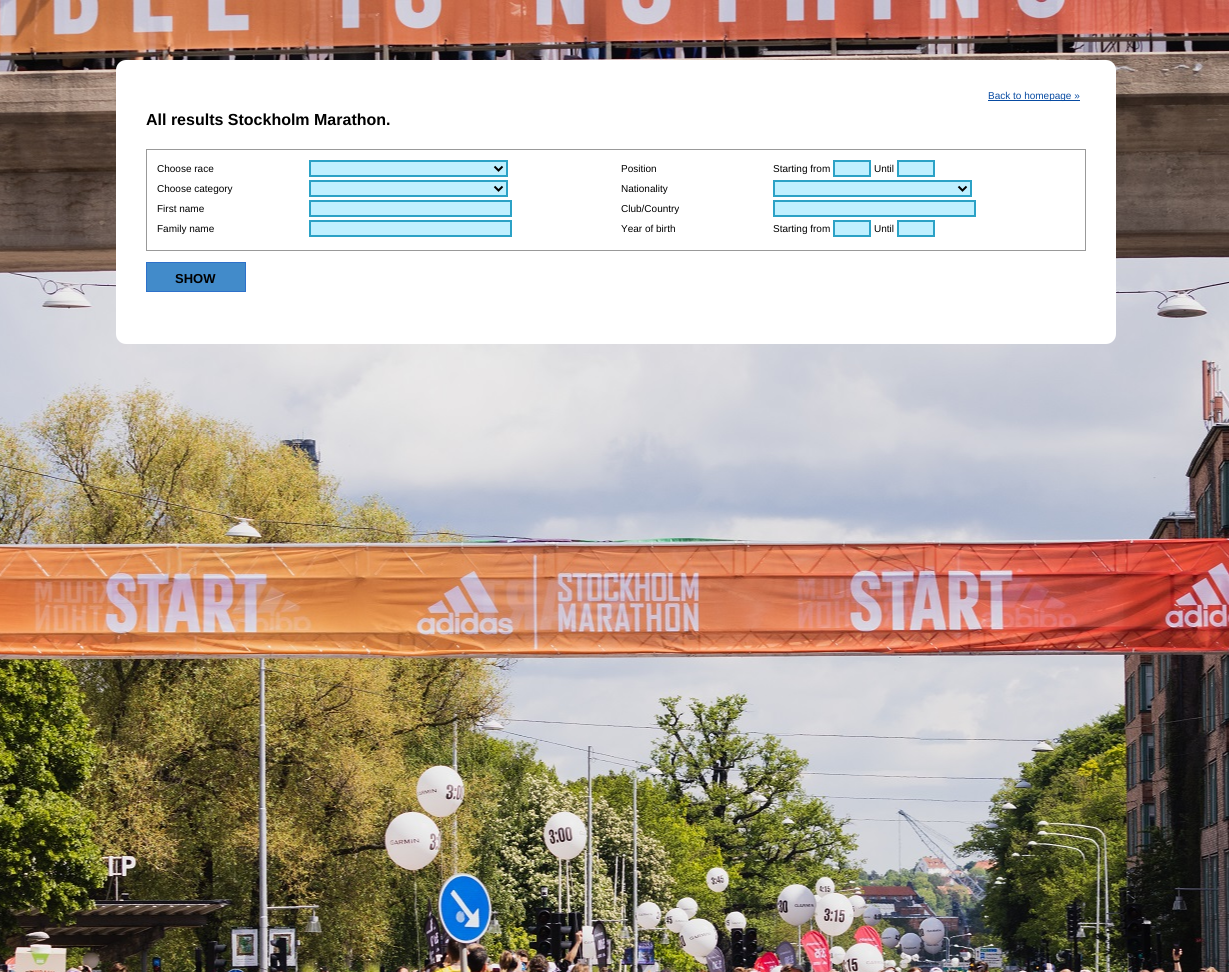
#include <cairo/cairo.h>
#include <math.h>
#include <stddef.h>

static cairo_t *cr;

static void use_color(int r, int g, int b) {
  cairo_set_source_rgb(cr, r / 255.0, g / 255.0, b / 255.0);
}

static void text(double x, double y, const char *s, const char *family, double size, int italic, int bold, int r, int g, int b) {
  cairo_select_font_face(cr, family, italic ? CAIRO_FONT_SLANT_ITALIC : CAIRO_FONT_SLANT_NORMAL,
    bold ? CAIRO_FONT_WEIGHT_BOLD : CAIRO_FONT_WEIGHT_NORMAL);
  cairo_set_font_size(cr, size);
  use_color(r, g, b);
  cairo_move_to(cr, x, y);
  cairo_show_text(cr, s);
}

static void box(double x, double y, double w, double h, int r, int g, int b) {
  use_color(r, g, b);
  cairo_rectangle(cr, x, y, w, h);
  cairo_fill(cr);
}

static void round_rect(double x, double y, double w, double h, double r) {
  cairo_new_sub_path(cr);
  cairo_arc(cr, x + w - r, y + h - r, r, 0, M_PI / 2);
  cairo_arc(cr, x + r, y + h - r, r, M_PI / 2, M_PI);
  cairo_arc(cr, x + r, y + r, r, M_PI, 1.5 * M_PI);
  cairo_arc(cr, x + w - r, y + r, r, 1.5 * M_PI, 2 * M_PI);
  cairo_close_path(cr);
}

static void picture(const char *path, double x, double y, double w, double h) {
  cairo_surface_t *image = cairo_image_surface_create_from_png(path);
  cairo_save(cr);
  cairo_set_source_surface(cr, image, x, y);
  cairo_rectangle(cr, x, y, w, h);
  cairo_fill(cr);
  cairo_restore(cr);
  cairo_surface_destroy(image);
}

static void draw(void) {
  use_color(255, 255, 255);
  cairo_paint(cr);
  picture("img_01.png", 0, 0, 1229, 972);
  use_color(255, 255, 255);
  round_rect(116, 60, 1000, 284, 10);
  cairo_fill(cr);
  box(988, 100, 92, 1, 8, 75, 162);
  cairo_rectangle(cr, 146.5, 149.5, 939, 101);
  use_color(153, 153, 153);
  cairo_set_line_width(cr, 1);
  cairo_stroke(cr);
  use_color(191, 240, 255);
  cairo_rectangle(cr, 310, 161, 197, 15);
  cairo_fill_preserve(cr);
  use_color(43, 162, 198);
  cairo_set_line_width(cr, 2);
  cairo_stroke(cr);
  cairo_new_path(cr);
  cairo_move_to(cr, 494.5, 166.5);
  cairo_line_to(cr, 498.5, 170.5);
  cairo_line_to(cr, 502.5, 166.5);
  use_color(0, 0, 0);
  cairo_stroke(cr);
  use_color(191, 240, 255);
  cairo_rectangle(cr, 834, 161, 36, 15);
  cairo_fill_preserve(cr);
  use_color(43, 162, 198);
  cairo_stroke(cr);
  use_color(191, 240, 255);
  cairo_rectangle(cr, 898, 161, 36, 15);
  cairo_fill_preserve(cr);
  use_color(43, 162, 198);
  cairo_stroke(cr);
  use_color(191, 240, 255);
  cairo_rectangle(cr, 310, 181, 197, 15);
  cairo_fill_preserve(cr);
  use_color(43, 162, 198);
  cairo_stroke(cr);
  cairo_new_path(cr);
  cairo_move_to(cr, 494.5, 186.5);
  cairo_line_to(cr, 498.5, 190.5);
  cairo_line_to(cr, 502.5, 186.5);
  use_color(0, 0, 0);
  cairo_stroke(cr);
  use_color(191, 240, 255);
  cairo_rectangle(cr, 774, 181, 197, 15);
  cairo_fill_preserve(cr);
  use_color(43, 162, 198);
  cairo_stroke(cr);
  cairo_new_path(cr);
  cairo_move_to(cr, 958.5, 186.5);
  cairo_line_to(cr, 962.5, 190.5);
  cairo_line_to(cr, 966.5, 186.5);
  use_color(0, 0, 0);
  cairo_stroke(cr);
  use_color(191, 240, 255);
  cairo_rectangle(cr, 310, 201, 201, 15);
  cairo_fill_preserve(cr);
  use_color(43, 162, 198);
  cairo_stroke(cr);
  use_color(191, 240, 255);
  cairo_rectangle(cr, 774, 201, 201, 15);
  cairo_fill_preserve(cr);
  use_color(43, 162, 198);
  cairo_stroke(cr);
  use_color(191, 240, 255);
  cairo_rectangle(cr, 310, 221, 201, 15);
  cairo_fill_preserve(cr);
  use_color(43, 162, 198);
  cairo_stroke(cr);
  use_color(191, 240, 255);
  cairo_rectangle(cr, 834, 221, 36, 15);
  cairo_fill_preserve(cr);
  use_color(43, 162, 198);
  cairo_stroke(cr);
  use_color(191, 240, 255);
  cairo_rectangle(cr, 898, 221, 36, 15);
  cairo_fill_preserve(cr);
  use_color(43, 162, 198);
  cairo_stroke(cr);
  use_color(66, 139, 202);
  cairo_rectangle(cr, 146.5, 262.5, 99, 29);
  cairo_fill_preserve(cr);
  use_color(45, 113, 202);
  cairo_set_line_width(cr, 1);
  cairo_stroke(cr);
  text(988, 99, "Back to homepage »", "Liberation Sans", 10, 0, 0, 8, 75, 162);
  text(146, 125, "All results Stockholm Marathon.", "Liberation Sans", 16, 0, 1, 0, 0, 0);
  text(157, 172, "Choose race", "Liberation Sans", 10, 0, 0, 0, 0, 0);
  text(621, 172, "Position", "Liberation Sans", 10, 0, 0, 0, 0, 0);
  text(773, 172, "Starting from", "Liberation Sans", 10, 0, 0, 0, 0, 0);
  text(874, 172, "Until", "Liberation Sans", 10, 0, 0, 0, 0, 0);
  text(157, 192, "Choose category", "Liberation Sans", 10, 0, 0, 0, 0, 0);
  text(621, 192, "Nationality", "Liberation Sans", 10, 0, 0, 0, 0, 0);
  text(157, 212, "First name", "Liberation Sans", 10, 0, 0, 0, 0, 0);
  text(621, 212, "Club/Country", "Liberation Sans", 10, 0, 0, 0, 0, 0);
  text(157, 232, "Family name", "Liberation Sans", 10, 0, 0, 0, 0, 0);
  text(621, 232, "Year of birth", "Liberation Sans", 10, 0, 0, 0, 0, 0);
  text(773, 232, "Starting from", "Liberation Sans", 10, 0, 0, 0, 0, 0);
  text(874, 232, "Until", "Liberation Sans", 10, 0, 0, 0, 0, 0);
  text(175, 283, "SHOW", "Liberation Sans", 13, 0, 1, 0, 0, 0);
}

int main(void) {
  cairo_surface_t *surface = cairo_image_surface_create(CAIRO_FORMAT_RGB24, 1229, 972);
  cr = cairo_create(surface);
  cairo_font_options_t *options = cairo_font_options_create();
  cairo_font_options_set_hint_metrics(options, CAIRO_HINT_METRICS_OFF);
  cairo_font_options_set_hint_style(options, CAIRO_HINT_STYLE_NONE);
  cairo_set_font_options(cr, options);
  cairo_set_miter_limit(cr, 4);
  draw();
  cairo_surface_write_to_png(surface, "out.png");
  cairo_font_options_destroy(options);
  cairo_destroy(cr);
  cairo_surface_destroy(surface);
  return 0;
}
